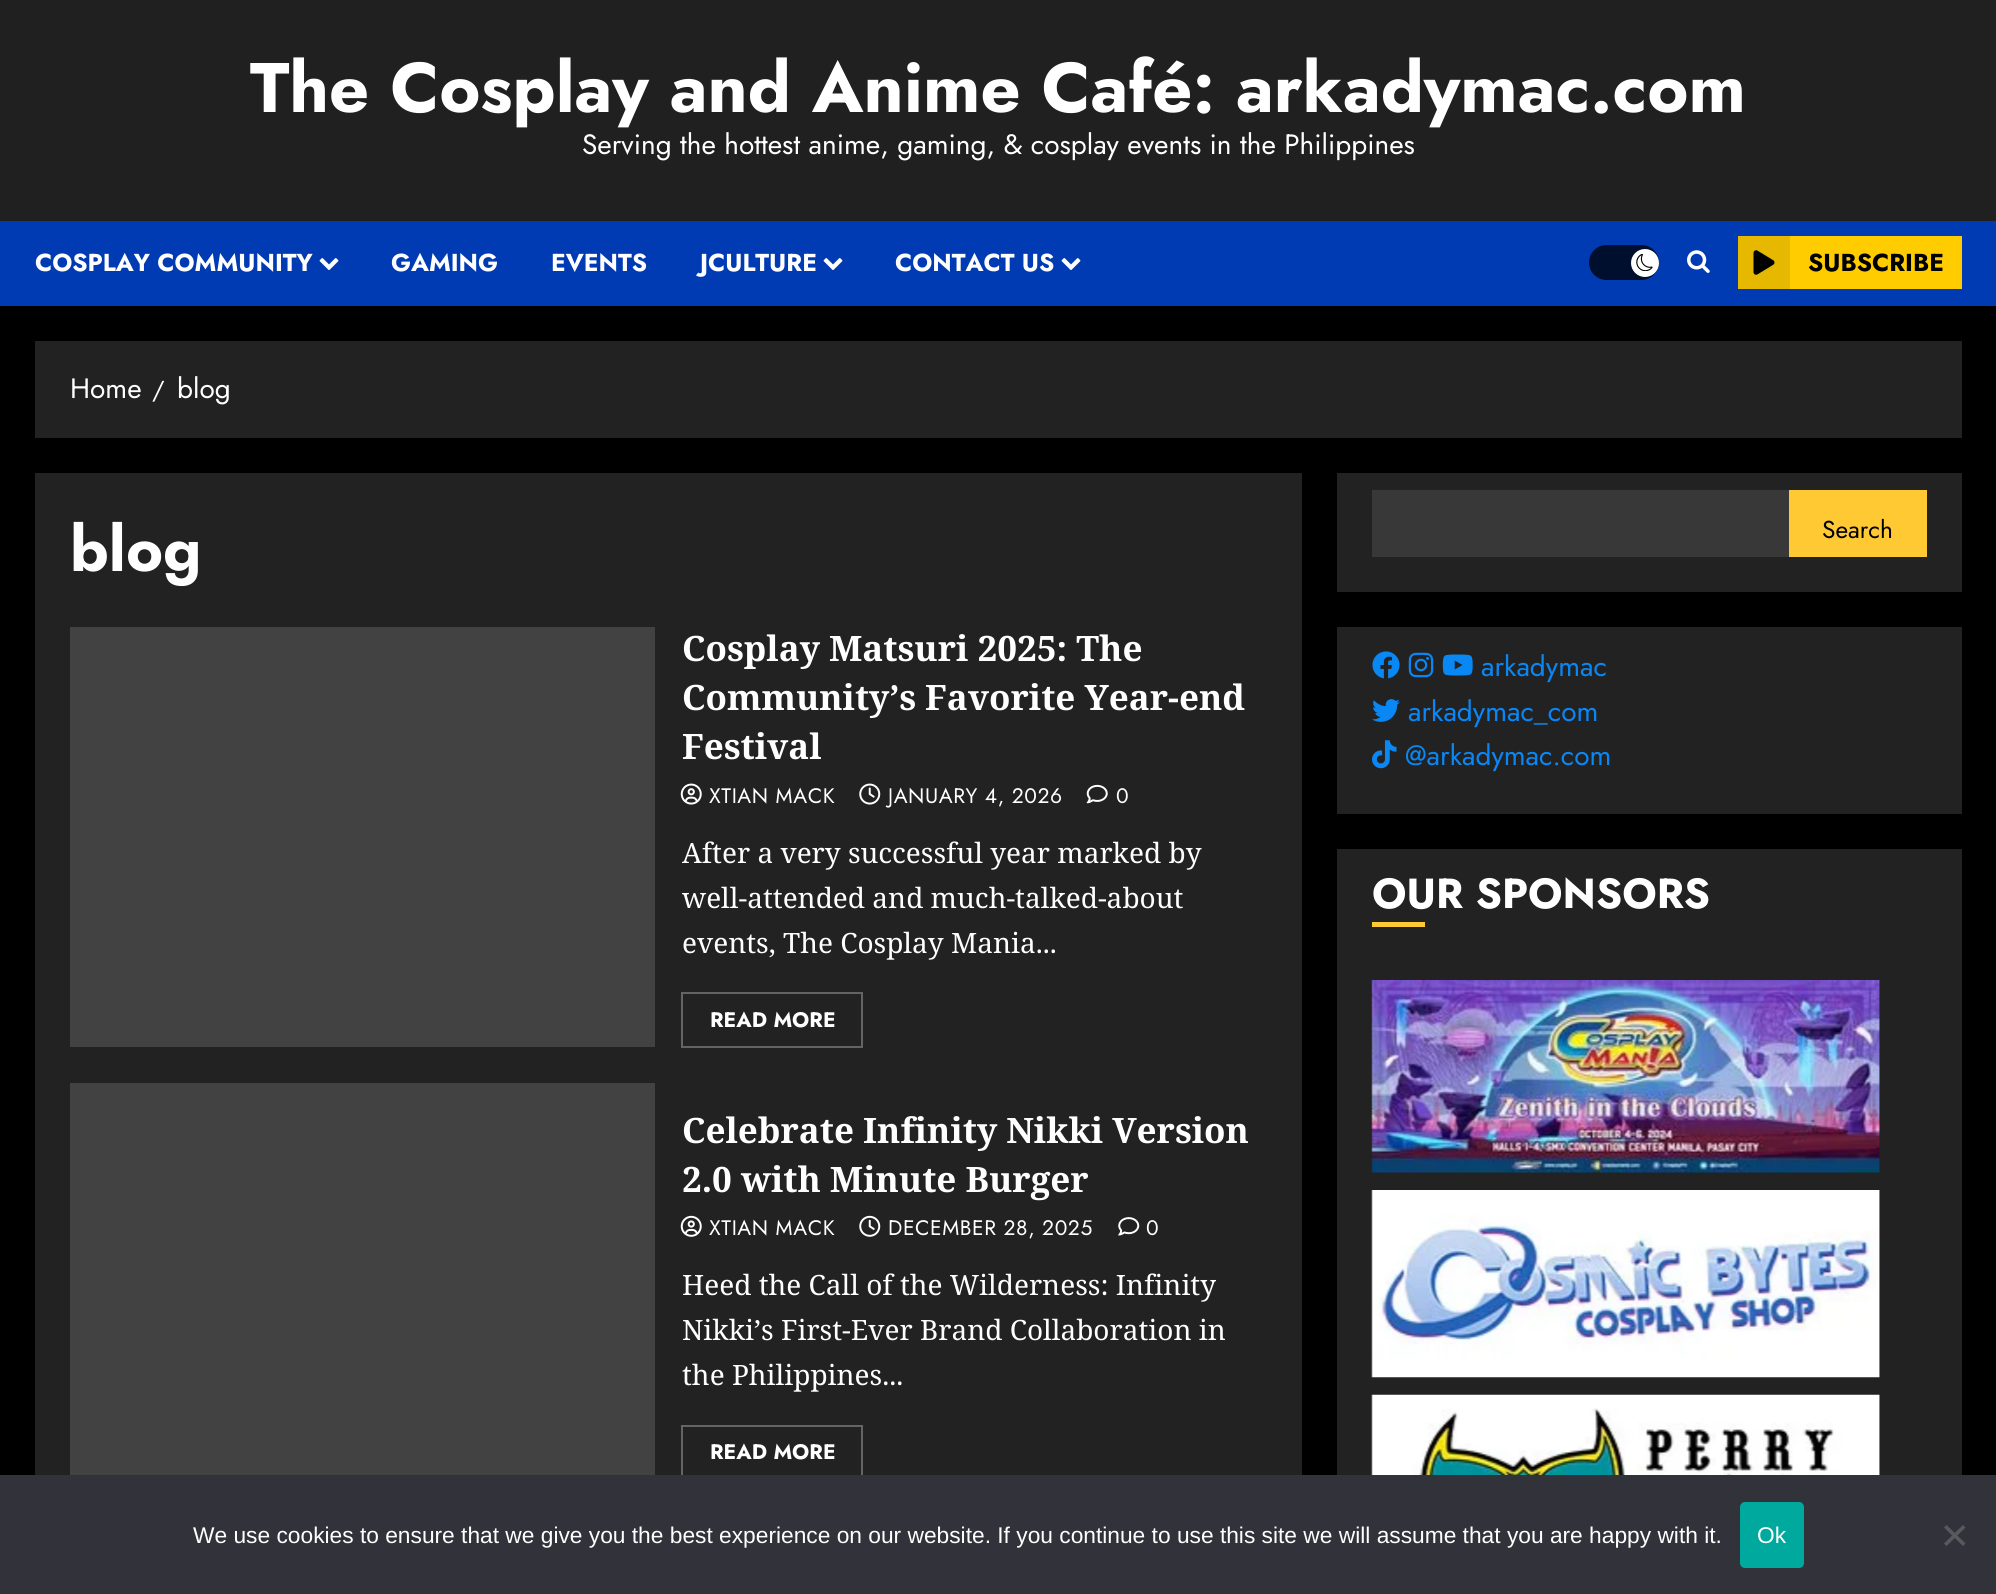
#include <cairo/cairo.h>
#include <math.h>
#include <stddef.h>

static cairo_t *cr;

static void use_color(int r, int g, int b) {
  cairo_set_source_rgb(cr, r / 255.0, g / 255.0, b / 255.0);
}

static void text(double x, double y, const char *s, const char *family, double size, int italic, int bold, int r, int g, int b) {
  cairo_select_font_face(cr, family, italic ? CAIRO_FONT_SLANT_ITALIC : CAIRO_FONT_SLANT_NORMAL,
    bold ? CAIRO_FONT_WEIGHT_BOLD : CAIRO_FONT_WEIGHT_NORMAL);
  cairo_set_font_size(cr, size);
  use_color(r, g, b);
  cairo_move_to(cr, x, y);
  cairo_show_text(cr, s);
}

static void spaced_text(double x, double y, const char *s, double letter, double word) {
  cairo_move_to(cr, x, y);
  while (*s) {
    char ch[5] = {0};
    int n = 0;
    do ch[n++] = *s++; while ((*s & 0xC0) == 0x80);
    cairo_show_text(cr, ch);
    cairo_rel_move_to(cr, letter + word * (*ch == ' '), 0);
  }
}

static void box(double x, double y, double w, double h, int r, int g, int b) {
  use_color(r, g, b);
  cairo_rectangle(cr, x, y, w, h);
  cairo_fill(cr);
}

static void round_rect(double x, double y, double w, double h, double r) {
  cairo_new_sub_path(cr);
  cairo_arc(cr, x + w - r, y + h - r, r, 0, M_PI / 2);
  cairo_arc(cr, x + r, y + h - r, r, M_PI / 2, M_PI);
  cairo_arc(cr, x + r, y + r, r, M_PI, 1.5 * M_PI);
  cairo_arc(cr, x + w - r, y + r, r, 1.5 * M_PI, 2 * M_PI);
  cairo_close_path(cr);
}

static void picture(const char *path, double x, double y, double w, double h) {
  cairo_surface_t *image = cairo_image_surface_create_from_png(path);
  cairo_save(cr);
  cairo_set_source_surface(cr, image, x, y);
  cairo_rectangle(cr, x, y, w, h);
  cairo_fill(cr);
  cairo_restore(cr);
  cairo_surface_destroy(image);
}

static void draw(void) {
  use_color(0, 0, 0);
  cairo_paint(cr);
  box(0, 0, 1996, 221, 32, 32, 32);
  box(0, 221, 1996, 85, 0, 59, 179);
  picture("img_01.png", 319, 258, 20, 12);
  picture("img_01.png", 823, 258, 20, 12);
  picture("img_01.png", 1061, 258, 20, 12);
  use_color(0, 15, 45);
  round_rect(1589, 245, 70, 35, 17.5);
  cairo_fill(cr);
  use_color(255, 255, 255);
  cairo_arc(cr, 1645, 263, 14, 0, 2 * M_PI);
  cairo_fill(cr);
  picture("img_02.png", 1636, 254, 17, 17);
  picture("img_03.png", 1687, 250, 23, 23);
  box(1790, 236, 172, 53, 255, 204, 0);
  box(1738, 236, 52, 53, 230, 184, 0);
  picture("img_04.png", 1753, 250, 22, 25);
  box(35, 341, 1927, 97, 34, 34, 34);
  box(35, 473, 1267, 1002, 34, 34, 34);
  box(70, 627, 585, 420, 66, 66, 66);
  picture("img_05.png", 680, 783, 22, 22);
  picture("img_06.png", 859, 783, 22, 22);
  picture("img_07.png", 1086, 784, 22, 20);
  cairo_rectangle(cr, 682, 993, 180, 54);
  use_color(100, 100, 100);
  cairo_stroke(cr);
  box(70, 1083, 585, 392, 66, 66, 66);
  picture("img_08.png", 680, 1215, 22, 22);
  picture("img_09.png", 859, 1215, 22, 22);
  picture("img_10.png", 1118, 1217, 22, 19);
  cairo_rectangle(cr, 682, 1426, 180, 54);
  use_color(100, 100, 100);
  cairo_stroke(cr);
  box(1337, 473, 625, 119, 34, 34, 34);
  box(1372, 490, 417, 67, 56, 56, 56);
  box(1789, 490, 138, 67, 255, 201, 52);
  box(1337, 627, 625, 187, 34, 34, 34);
  picture("img_11.png", 1372, 651, 28, 28);
  picture("img_12.png", 1408, 652, 26, 26);
  picture("img_13.png", 1442, 654, 31, 22);
  picture("img_14.png", 1372, 699, 28, 23);
  picture("img_15.png", 1372, 740, 25, 29);
  box(1337, 849, 625, 626, 34, 34, 34);
  box(1372, 922, 53, 5, 255, 201, 52);
  picture("img_16.png", 1371, 980, 509, 193);
  picture("img_17.png", 1371, 1190, 509, 188);
  picture("img_18.png", 1371, 1394, 509, 81);
  box(0, 1475, 1996, 119, 50, 50, 58);
  use_color(0, 169, 157);
  round_rect(1740, 1502, 64, 66, 5);
  cairo_fill(cr);
  use_color(89, 89, 93);
  cairo_new_path(cr);
  cairo_move_to(cr, 1963, 1525);
  cairo_line_to(cr, 1965.5, 1527.5);
  cairo_line_to(cr, 1946.5, 1546);
  cairo_line_to(cr, 1944, 1543.5);
  cairo_close_path(cr);
  cairo_fill(cr);
  cairo_new_path(cr);
  cairo_move_to(cr, 1944, 1527.5);
  cairo_line_to(cr, 1946.5, 1525);
  cairo_line_to(cr, 1965.5, 1543.5);
  cairo_line_to(cr, 1963, 1546);
  cairo_close_path(cr);
  cairo_fill(cr);
  text(250, 112, "The Cosplay and Anime Café: arkadymac.com", "Jost", 70, 0, 1, 255, 255, 255);
  text(582, 154, "Serving the hottest anime, gaming, & cosplay events in the Philippines", "Jost", 28, 0, 0, 255, 255, 255);
  text(35, 271, "COSPLAY COMMUNITY", "Jost", 24.5, 0, 1, 255, 255, 255);
  text(391, 271, "GAMING", "Jost", 24.5, 0, 1, 255, 255, 255);
  text(551, 271, "EVENTS", "Jost", 24.5, 0, 1, 255, 255, 255);
  text(700, 271, "JCULTURE", "Jost", 24.5, 0, 1, 255, 255, 255);
  text(895, 271, "CONTACT US", "Jost", 24.5, 0, 1, 255, 255, 255);
  text(1808, 271, "SUBSCRIBE", "Jost", 24.5, 0, 1, 0, 0, 0);
  text(70, 398, "Home", "Jost", 28, 0, 0, 255, 255, 255);
  text(152, 398, "/", "Jost", 24.5, 0, 0, 255, 255, 255);
  text(177, 398, "blog", "Jost", 28, 0, 0, 255, 255, 255);
  text(70, 571, "blog", "Jost", 63, 0, 1, 255, 255, 255);
  text(682, 661, "Cosplay Matsuri 2025: The", "Noto Serif", 35, 0, 1, 255, 255, 255);
  text(682, 710, "Community’s Favorite Year-end", "Noto Serif", 35, 0, 1, 255, 255, 255);
  text(682, 759, "Festival", "Noto Serif", 35, 0, 1, 255, 255, 255);
  cairo_select_font_face(cr, "Jost", CAIRO_FONT_SLANT_NORMAL, CAIRO_FONT_WEIGHT_NORMAL);
  cairo_set_font_size(cr, 21);
  spaced_text(709, 803, "XTIAN MACK", 0.6, 0);
  spaced_text(888, 803, "JANUARY 4, 2026", 0.6, 0);
  spaced_text(1116, 803, "0", 0.6, 0);
  text(682, 863, "After a very successful year marked by", "Noto Serif", 28, 0, 0, 255, 255, 255);
  text(682, 908, "well-attended and much-talked-about", "Noto Serif", 28, 0, 0, 255, 255, 255);
  text(682, 953, "events, The Cosplay Mania...", "Noto Serif", 28, 0, 0, 255, 255, 255);
  text(710, 1027, "READ MORE", "Jost", 21, 0, 1, 255, 255, 255);
  text(682, 1143, "Celebrate Infinity Nikki Version", "Noto Serif", 35, 0, 1, 255, 255, 255);
  text(682, 1192, "2.0 with Minute Burger", "Noto Serif", 35, 0, 1, 255, 255, 255);
  cairo_select_font_face(cr, "Jost", CAIRO_FONT_SLANT_NORMAL, CAIRO_FONT_WEIGHT_NORMAL);
  cairo_set_font_size(cr, 21);
  spaced_text(709, 1235, "XTIAN MACK", 0.6, 0);
  spaced_text(888, 1235, "DECEMBER 28, 2025", 0.6, 0);
  spaced_text(1146, 1235, "0", 0.6, 0);
  text(682, 1295, "Heed the Call of the Wilderness: Infinity", "Noto Serif", 28, 0, 0, 255, 255, 255);
  text(682, 1340, "Nikki’s First-Ever Brand Collaboration in", "Noto Serif", 28, 0, 0, 255, 255, 255);
  text(682, 1385, "the Philippines...", "Noto Serif", 28, 0, 0, 255, 255, 255);
  text(710, 1459, "READ MORE", "Jost", 21, 0, 1, 255, 255, 255);
  text(1822, 538, "Search", "Jost", 24.5, 0, 0, 0, 0, 0);
  text(1481, 676, "arkadymac", "Jost", 28, 0, 0, 9, 135, 245);
  text(1408, 721, "arkadymac_com", "Jost", 28, 0, 0, 9, 135, 245);
  text(1405, 765, "@arkadymac.com", "Jost", 28, 0, 0, 9, 135, 245);
  text(1372, 908, "OUR SPONSORS", "Jost", 42, 0, 1, 255, 255, 255);
  text(193, 1543, "We use cookies to ensure that we give you the best experience on our website. If you continue to use this site we will assume that you are happy with it.", "Liberation Sans", 22.75, 0, 0, 255, 255, 255);
  text(1757, 1543, "Ok", "Liberation Sans", 22.75, 0, 0, 255, 255, 255);
}

int main(void) {
  cairo_surface_t *surface = cairo_image_surface_create(CAIRO_FORMAT_RGB24, 1996, 1594);
  cr = cairo_create(surface);
  cairo_font_options_t *options = cairo_font_options_create();
  cairo_font_options_set_hint_metrics(options, CAIRO_HINT_METRICS_OFF);
  cairo_font_options_set_hint_style(options, CAIRO_HINT_STYLE_NONE);
  cairo_set_font_options(cr, options);
  cairo_set_miter_limit(cr, 4);
  draw();
  cairo_surface_write_to_png(surface, "out.png");
  cairo_font_options_destroy(options);
  cairo_destroy(cr);
  cairo_surface_destroy(surface);
  return 0;
}
